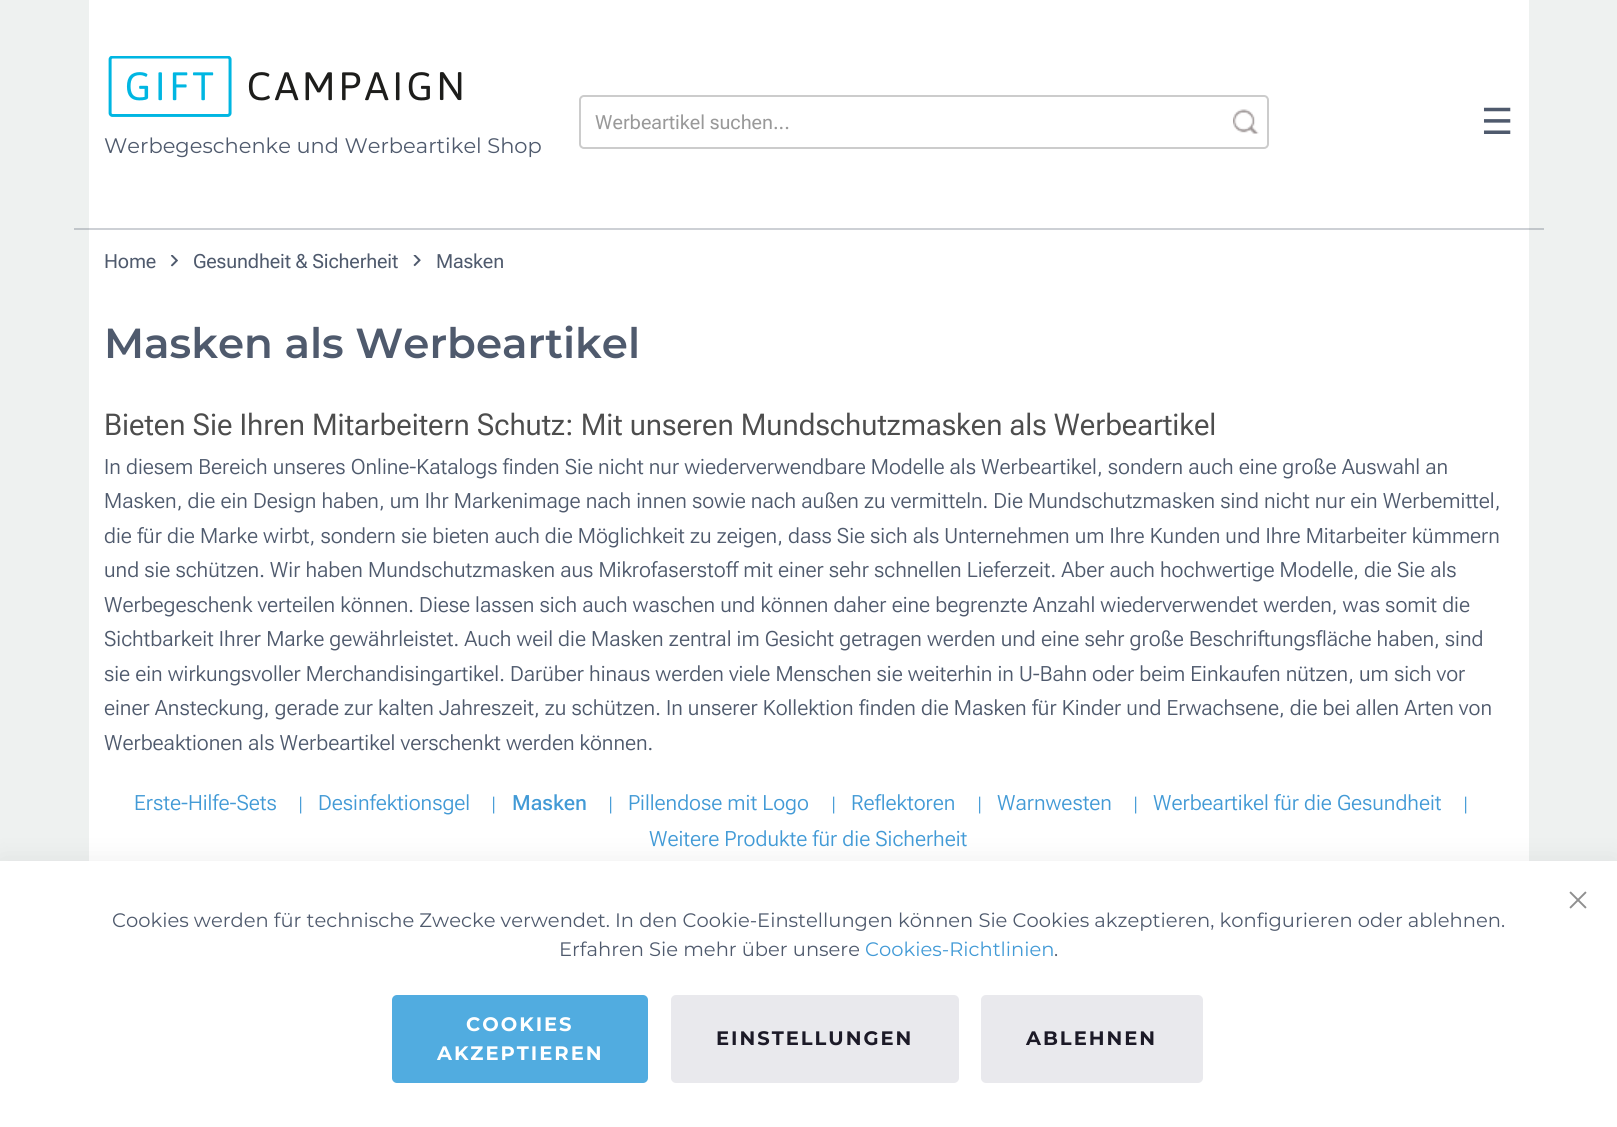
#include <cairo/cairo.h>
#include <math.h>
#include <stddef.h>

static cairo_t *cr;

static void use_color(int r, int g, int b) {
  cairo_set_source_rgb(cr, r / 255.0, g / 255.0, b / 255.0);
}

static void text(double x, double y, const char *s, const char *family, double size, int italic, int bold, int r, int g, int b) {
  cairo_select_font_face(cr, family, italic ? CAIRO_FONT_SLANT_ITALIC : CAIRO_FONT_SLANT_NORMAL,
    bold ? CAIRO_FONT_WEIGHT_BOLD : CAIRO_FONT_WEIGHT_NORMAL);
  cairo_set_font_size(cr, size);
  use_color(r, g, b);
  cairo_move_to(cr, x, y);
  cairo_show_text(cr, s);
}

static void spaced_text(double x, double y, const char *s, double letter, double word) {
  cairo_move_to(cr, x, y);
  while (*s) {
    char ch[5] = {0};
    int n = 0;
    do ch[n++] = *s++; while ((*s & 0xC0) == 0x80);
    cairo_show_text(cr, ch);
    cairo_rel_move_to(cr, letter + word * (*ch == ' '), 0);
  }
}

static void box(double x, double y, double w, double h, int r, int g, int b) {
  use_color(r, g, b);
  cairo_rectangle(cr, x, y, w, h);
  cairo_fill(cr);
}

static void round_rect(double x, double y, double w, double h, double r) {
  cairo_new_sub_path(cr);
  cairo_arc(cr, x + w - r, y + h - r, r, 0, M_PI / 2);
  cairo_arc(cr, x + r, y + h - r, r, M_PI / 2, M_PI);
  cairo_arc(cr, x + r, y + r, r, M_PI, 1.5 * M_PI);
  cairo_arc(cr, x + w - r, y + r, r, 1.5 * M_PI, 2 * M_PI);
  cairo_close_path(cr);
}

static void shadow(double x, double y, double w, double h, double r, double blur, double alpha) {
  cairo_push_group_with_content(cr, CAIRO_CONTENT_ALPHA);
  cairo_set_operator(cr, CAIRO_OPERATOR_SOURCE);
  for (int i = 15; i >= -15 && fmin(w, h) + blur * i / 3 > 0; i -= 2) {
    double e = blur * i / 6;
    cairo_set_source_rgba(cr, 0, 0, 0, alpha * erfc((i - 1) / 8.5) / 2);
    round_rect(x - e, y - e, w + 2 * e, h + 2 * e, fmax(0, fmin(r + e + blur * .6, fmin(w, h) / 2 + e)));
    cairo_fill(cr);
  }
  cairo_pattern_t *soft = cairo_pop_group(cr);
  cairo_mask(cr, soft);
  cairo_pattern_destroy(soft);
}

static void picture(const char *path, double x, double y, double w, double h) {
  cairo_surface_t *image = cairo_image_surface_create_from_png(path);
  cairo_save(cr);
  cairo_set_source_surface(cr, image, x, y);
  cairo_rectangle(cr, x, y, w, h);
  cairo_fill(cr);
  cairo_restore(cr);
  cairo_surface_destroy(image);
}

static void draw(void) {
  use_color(238, 241, 240);
  cairo_paint(cr);
  box(74, 228, 1470, 2, 193, 198, 202);
  box(89, 0, 1440, 861, 255, 255, 255);
  box(89, 228, 1440, 2, 205, 208, 213);
  round_rect(580, 96, 688, 52, 4);
  use_color(204, 204, 204);
  cairo_stroke(cr);
  picture("img_01.png", 1233, 109, 26, 25);
  picture("img_02.png", 108, 56, 354, 61);
  picture("img_03.png", 170, 255, 8, 12);
  picture("img_04.png", 413, 255, 8, 12);
  use_color(0, 0, 0);
  shadow(0, 858, 1617, 267, 0, 13.5, 0.06);
  box(0, 861, 1617, 266, 255, 255, 255);
  picture("img_05.png", 1569, 891, 18, 18);
  use_color(81, 172, 224);
  round_rect(392, 995, 256, 88, 5);
  cairo_fill(cr);
  use_color(233, 233, 237);
  round_rect(671, 995, 288, 88, 5);
  cairo_fill(cr);
  round_rect(981, 995, 222, 88, 5);
  cairo_fill(cr);
  text(595, 129, "Werbeartikel suchen...", "Roboto Flex", 19.5, 0, 0, 153, 153, 153);
  text(1481, 134, "☰", "DejaVu Sans", 36, 0, 0, 79, 90, 109);
  text(104, 153, "Werbegeschenke und Werbeartikel Shop", "Montserrat", 21, 0, 0, 79, 90, 109);
  cairo_select_font_face(cr, "Roboto Flex", CAIRO_FONT_SLANT_NORMAL, CAIRO_FONT_WEIGHT_NORMAL);
  cairo_set_font_size(cr, 19.5);
  spaced_text(104, 268, "Home", -0.15, 0);
  spaced_text(193, 268, "Gesundheit & Sicherheit", -0.15, 0);
  spaced_text(436, 268, "Masken", -0.15, 0);
  text(104, 358, "Masken als Werbeartikel", "Montserrat SemiBold", 42, 0, 0, 79, 90, 109);
  text(104, 435, "Bieten Sie Ihren Mitarbeitern Schutz: Mit unseren Mundschutzmasken als Werbeartikel", "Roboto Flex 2", 30, 0, 0, 77, 77, 77);
  text(104, 474, "In diesem Bereich unseres Online-Katalogs finden Sie nicht nur wiederverwendbare Modelle als Werbeartikel, sondern auch eine große Auswahl an", "Roboto Flex Light", 21, 0, 0, 79, 90, 109);
  text(104, 508, "Masken, die ein Design haben, um Ihr Markenimage nach innen sowie nach außen zu vermitteln. Die Mundschutzmasken sind nicht nur ein Werbemittel,", "Roboto Flex Light", 21, 0, 0, 79, 90, 109);
  text(104, 543, "die für die Marke wirbt, sondern sie bieten auch die Möglichkeit zu zeigen, dass Sie sich als Unternehmen um Ihre Kunden und Ihre Mitarbeiter kümmern", "Roboto Flex Light", 21, 0, 0, 79, 90, 109);
  text(104, 577, "und sie schützen. Wir haben Mundschutzmasken aus Mikrofaserstoff mit einer sehr schnellen Lieferzeit. Aber auch hochwertige Modelle, die Sie als", "Roboto Flex Light", 21, 0, 0, 79, 90, 109);
  text(104, 612, "Werbegeschenk verteilen können. Diese lassen sich auch waschen und können daher eine begrenzte Anzahl wiederverwendet werden, was somit die", "Roboto Flex Light", 21, 0, 0, 79, 90, 109);
  text(104, 646, "Sichtbarkeit Ihrer Marke gewährleistet. Auch weil die Masken zentral im Gesicht getragen werden und eine sehr große Beschriftungsfläche haben, sind", "Roboto Flex Light", 21, 0, 0, 79, 90, 109);
  text(104, 681, "sie ein wirkungsvoller Merchandisingartikel. Darüber hinaus werden viele Menschen sie weiterhin in U-Bahn oder beim Einkaufen nützen, um sich vor", "Roboto Flex Light", 21, 0, 0, 79, 90, 109);
  text(104, 715, "einer Ansteckung, gerade zur kalten Jahreszeit, zu schützen. In unserer Kollektion finden die Masken für Kinder und Erwachsene, die bei allen Arten von", "Roboto Flex Light", 21, 0, 0, 79, 90, 109);
  text(104, 750, "Werbeaktionen als Werbeartikel verschenkt werden können.", "Roboto Flex Light", 21, 0, 0, 79, 90, 109);
  text(134, 810, "Erste-Hilfe-Sets", "Roboto Flex Light", 21, 0, 0, 66, 154, 214);
  text(298, 810, "|", "Montserrat", 18, 0, 0, 66, 154, 214);
  text(318, 810, "Desinfektionsgel", "Roboto Flex Light", 21, 0, 0, 66, 154, 214);
  text(491, 810, "|", "Montserrat", 18, 0, 0, 66, 154, 214);
  text(512, 810, "Masken", "Roboto Flex Medium", 21, 0, 0, 66, 154, 214);
  text(608, 810, "|", "Montserrat", 18, 0, 0, 66, 154, 214);
  text(628, 810, "Pillendose mit Logo", "Roboto Flex Light", 21, 0, 0, 66, 154, 214);
  text(831, 810, "|", "Montserrat", 18, 0, 0, 66, 154, 214);
  text(851, 810, "Reflektoren", "Roboto Flex Light", 21, 0, 0, 66, 154, 214);
  text(977, 810, "|", "Montserrat", 18, 0, 0, 66, 154, 214);
  text(997, 810, "Warnwesten", "Roboto Flex Light", 21, 0, 0, 66, 154, 214);
  text(1133, 810, "|", "Montserrat", 18, 0, 0, 66, 154, 214);
  text(1153, 810, "Werbeartikel für die Gesundheit", "Roboto Flex Light", 21, 0, 0, 66, 154, 214);
  text(1463, 810, "|", "Montserrat", 18, 0, 0, 66, 154, 214);
  text(649, 846, "Weitere Produkte für die Sicherheit", "Roboto Flex Light", 21, 0, 0, 66, 154, 214);
  text(112, 927, "Cookies werden für technische Zwecke verwendet. In den Cookie-Einstellungen können Sie Cookies akzeptieren, konfigurieren oder ablehnen.", "Montserrat", 19.5, 0, 0, 79, 90, 109);
  text(559, 956, "Erfahren Sie mehr über unsere", "Montserrat", 19.5, 0, 0, 79, 90, 109);
  text(865, 956, "Cookies-Richtlinien", "Montserrat", 19.5, 0, 0, 66, 154, 214);
  text(1054, 956, ".", "Montserrat", 19.5, 0, 0, 79, 90, 109);
  cairo_select_font_face(cr, "Montserrat", CAIRO_FONT_SLANT_NORMAL, CAIRO_FONT_WEIGHT_BOLD);
  use_color(255, 255, 255);
  spaced_text(466, 1031, "COOKIES", 2, 0);
  spaced_text(437, 1060, "AKZEPTIEREN", 2, 0);
  use_color(28, 26, 39);
  spaced_text(716, 1045, "EINSTELLUNGEN", 2, 0);
  spaced_text(1026, 1045, "ABLEHNEN", 2, 0);
}

int main(void) {
  cairo_surface_t *surface = cairo_image_surface_create(CAIRO_FORMAT_RGB24, 1617, 1127);
  cr = cairo_create(surface);
  cairo_font_options_t *options = cairo_font_options_create();
  cairo_font_options_set_hint_metrics(options, CAIRO_HINT_METRICS_OFF);
  cairo_font_options_set_hint_style(options, CAIRO_HINT_STYLE_NONE);
  cairo_set_font_options(cr, options);
  cairo_set_miter_limit(cr, 4);
  draw();
  cairo_surface_write_to_png(surface, "out.png");
  cairo_font_options_destroy(options);
  cairo_destroy(cr);
  cairo_surface_destroy(surface);
  return 0;
}
